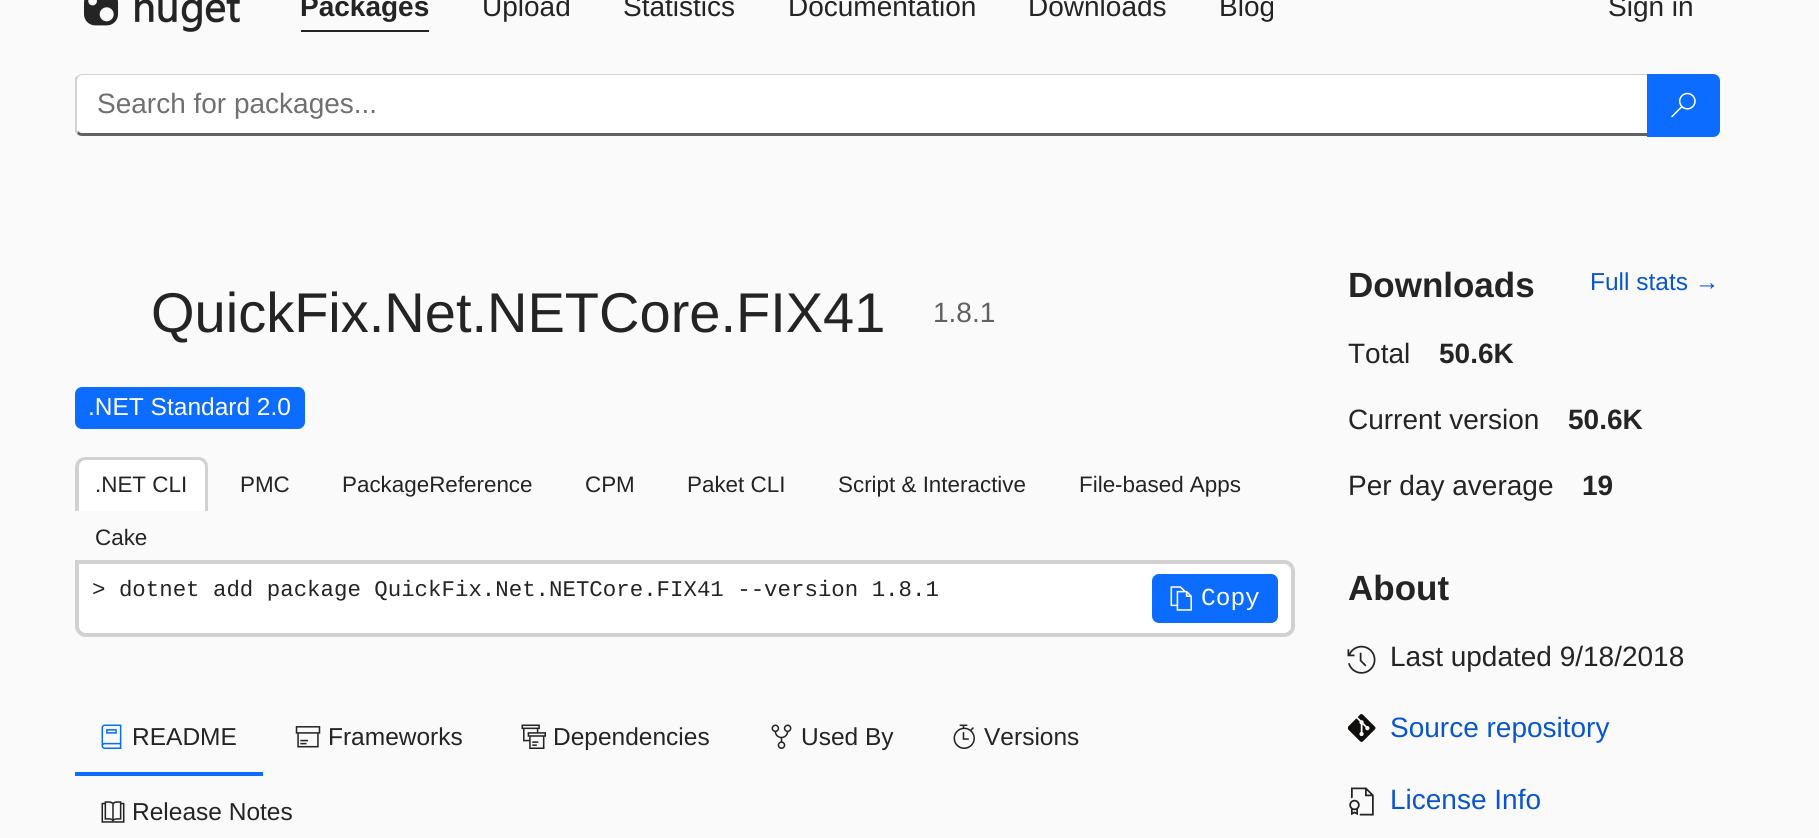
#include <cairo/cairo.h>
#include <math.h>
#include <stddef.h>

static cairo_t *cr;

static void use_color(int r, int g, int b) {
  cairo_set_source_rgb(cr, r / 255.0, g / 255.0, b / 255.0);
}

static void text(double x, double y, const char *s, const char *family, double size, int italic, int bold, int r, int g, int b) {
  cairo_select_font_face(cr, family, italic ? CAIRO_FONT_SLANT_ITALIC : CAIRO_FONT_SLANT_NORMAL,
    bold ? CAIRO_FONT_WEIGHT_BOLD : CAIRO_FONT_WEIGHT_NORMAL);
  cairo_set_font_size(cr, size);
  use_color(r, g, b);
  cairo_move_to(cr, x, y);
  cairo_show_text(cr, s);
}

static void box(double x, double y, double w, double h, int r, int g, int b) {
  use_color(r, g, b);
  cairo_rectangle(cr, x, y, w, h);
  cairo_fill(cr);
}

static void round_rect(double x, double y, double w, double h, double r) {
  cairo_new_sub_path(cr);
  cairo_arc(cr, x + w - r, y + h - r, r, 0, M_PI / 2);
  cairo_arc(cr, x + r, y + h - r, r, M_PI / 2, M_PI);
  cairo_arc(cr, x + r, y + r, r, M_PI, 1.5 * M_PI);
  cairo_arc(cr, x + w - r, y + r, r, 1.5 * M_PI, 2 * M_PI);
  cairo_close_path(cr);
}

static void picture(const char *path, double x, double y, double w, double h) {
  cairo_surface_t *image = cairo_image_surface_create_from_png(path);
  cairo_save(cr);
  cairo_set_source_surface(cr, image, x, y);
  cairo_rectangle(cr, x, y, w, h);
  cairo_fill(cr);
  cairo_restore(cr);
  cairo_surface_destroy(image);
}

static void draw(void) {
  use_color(250, 250, 250);
  cairo_paint(cr);
  picture("img_01.png", 84, 0, 156, 32);
  box(301, 30, 128, 2, 36, 36, 36);
  use_color(255, 255, 255);
  cairo_new_path(cr);
  cairo_move_to(cr, 82, 75);
  cairo_line_to(cr, 1647, 75);
  cairo_line_to(cr, 1647, 133);
  cairo_line_to(cr, 82, 133);
  cairo_curve_to(cr, 79, 133, 77, 131, 77, 130);
  cairo_line_to(cr, 77, 80);
  cairo_curve_to(cr, 77, 78, 79, 75, 82, 75);
  cairo_close_path(cr);
  cairo_fill(cr);
  use_color(209, 209, 209);
  cairo_new_path(cr);
  cairo_move_to(cr, 82, 74);
  cairo_curve_to(cr, 80, 74, 79, 75, 77, 76);
  cairo_line_to(cr, 78, 77);
  cairo_curve_to(cr, 79, 76, 81, 75, 82, 75);
  cairo_line_to(cr, 1647, 75);
  cairo_line_to(cr, 1648, 74);
  cairo_close_path(cr);
  cairo_fill(cr);
  use_color(97, 97, 97);
  cairo_new_path(cr);
  cairo_move_to(cr, 1648, 136);
  cairo_line_to(cr, 82, 136);
  cairo_curve_to(cr, 80, 136, 78, 135, 77, 134);
  cairo_line_to(cr, 78, 131);
  cairo_curve_to(cr, 79, 132, 80, 133, 82, 133);
  cairo_line_to(cr, 1647, 133);
  cairo_close_path(cr);
  cairo_fill(cr);
  use_color(209, 209, 209);
  cairo_new_path(cr);
  cairo_move_to(cr, 75, 78);
  cairo_line_to(cr, 77, 76);
  cairo_line_to(cr, 78, 77);
  cairo_line_to(cr, 77, 80);
  cairo_line_to(cr, 77, 130);
  cairo_line_to(cr, 78, 131);
  cairo_line_to(cr, 77, 134);
  cairo_line_to(cr, 75, 132);
  cairo_close_path(cr);
  cairo_fill(cr);
  use_color(11, 108, 255);
  cairo_new_path(cr);
  cairo_move_to(cr, 1647, 74);
  cairo_line_to(cr, 1713, 74);
  cairo_curve_to(cr, 1717, 74, 1720, 77, 1720, 81);
  cairo_line_to(cr, 1720, 130);
  cairo_curve_to(cr, 1720, 134, 1717, 137, 1713, 137);
  cairo_line_to(cr, 1647, 137);
  cairo_close_path(cr);
  cairo_fill(cr);
  picture("img_02.png", 1671, 92, 25, 26);
  round_rect(75, 387, 230, 42, 7);
  cairo_fill(cr);
  use_color(255, 255, 255);
  cairo_new_path(cr);
  cairo_move_to(cr, 86, 457);
  cairo_line_to(cr, 197, 457);
  cairo_curve_to(cr, 203, 457, 208, 462, 208, 468);
  cairo_line_to(cr, 208, 511);
  cairo_line_to(cr, 75, 511);
  cairo_line_to(cr, 75, 468);
  cairo_curve_to(cr, 75, 462, 80, 457, 86, 457);
  cairo_close_path(cr);
  cairo_fill(cr);
  use_color(209, 209, 209);
  cairo_set_fill_rule(cr, CAIRO_FILL_RULE_EVEN_ODD);
  cairo_new_path(cr);
  cairo_move_to(cr, 86, 457);
  cairo_line_to(cr, 198, 457);
  cairo_curve_to(cr, 204, 457, 208, 461, 208, 467);
  cairo_line_to(cr, 208, 511);
  cairo_line_to(cr, 75, 511);
  cairo_line_to(cr, 75, 467);
  cairo_curve_to(cr, 75, 461, 80, 457, 86, 457);
  cairo_close_path(cr);
  cairo_move_to(cr, 86, 460);
  cairo_line_to(cr, 198, 460);
  cairo_curve_to(cr, 202, 460, 205, 463, 205, 467);
  cairo_line_to(cr, 205, 511);
  cairo_line_to(cr, 79, 511);
  cairo_line_to(cr, 79, 467);
  cairo_curve_to(cr, 79, 463, 82, 460, 86, 460);
  cairo_close_path(cr);
  cairo_fill(cr);
  use_color(255, 255, 255);
  cairo_new_path(cr);
  cairo_move_to(cr, 77, 562);
  cairo_line_to(cr, 1284, 562);
  cairo_curve_to(cr, 1289, 562, 1293, 566, 1293, 571);
  cairo_line_to(cr, 1293, 626);
  cairo_curve_to(cr, 1293, 631, 1289, 635, 1284, 635);
  cairo_line_to(cr, 86, 635);
  cairo_curve_to(cr, 81, 635, 77, 631, 77, 626);
  cairo_close_path(cr);
  cairo_fill_preserve(cr);
  use_color(209, 209, 209);
  cairo_set_line_width(cr, 4);
  cairo_stroke(cr);
  use_color(11, 108, 255);
  round_rect(1152, 574, 126, 49, 7);
  cairo_fill(cr);
  picture("img_03.png", 1170, 586, 22, 25);
  box(75, 772, 188, 4, 11, 108, 255);
  picture("img_04.png", 101, 724, 21, 25);
  picture("img_05.png", 295, 726, 26, 22);
  picture("img_06.png", 521, 724, 25, 25);
  picture("img_07.png", 771, 724, 21, 25);
  picture("img_08.png", 953, 724, 22, 25);
  picture("img_09.png", 101, 801, 24, 22);
  picture("img_10.png", 1347, 645, 29, 29);
  picture("img_11.png", 1348, 714, 28, 28);
  picture("img_12.png", 1349, 787, 25, 29);
  text(300, 16, "Packages", "Liberation Sans", 28, 0, 1, 36, 36, 36);
  text(482, 16, "Upload", "Liberation Sans", 28, 0, 0, 36, 36, 36);
  text(623, 16, "Statistics", "Liberation Sans", 28, 0, 0, 36, 36, 36);
  text(788, 16, "Documentation", "Liberation Sans", 28, 0, 0, 36, 36, 36);
  text(1028, 16, "Downloads", "Liberation Sans", 28, 0, 0, 36, 36, 36);
  text(1219, 16, "Blog", "Liberation Sans", 28, 0, 0, 36, 36, 36);
  text(1608, 16, "Sign in", "Liberation Sans", 28, 0, 0, 36, 36, 36);
  text(97, 113, "Search for packages...", "Liberation Sans", 28, 0, 0, 112, 112, 112);
  text(151, 332, "QuickFix.Net.NETCore.FIX41", "Liberation Sans", 56, 0, 0, 36, 36, 36);
  text(933, 322, "1.8.1", "Liberation Sans", 28, 0, 0, 97, 97, 97);
  text(88, 415, ".NET Standard 2.0", "Liberation Sans", 24.5, 0, 0, 255, 255, 255);
  text(95, 492, ".NET CLI", "Liberation Sans", 22.4, 0, 0, 36, 36, 36);
  text(240, 492, "PMC", "Liberation Sans", 22.4, 0, 0, 36, 36, 36);
  text(342, 492, "PackageReference", "Liberation Sans", 22.4, 0, 0, 36, 36, 36);
  text(585, 492, "CPM", "Liberation Sans", 22.4, 0, 0, 36, 36, 36);
  text(687, 492, "Paket CLI", "Liberation Sans", 22.4, 0, 0, 36, 36, 36);
  text(838, 492, "Script & Interactive", "Liberation Sans", 22.4, 0, 0, 36, 36, 36);
  text(1079, 492, "File-based Apps", "Liberation Sans", 22.4, 0, 0, 36, 36, 36);
  text(95, 545, "Cake", "Liberation Sans", 22.4, 0, 0, 36, 36, 36);
  text(92, 596, "> dotnet add package QuickFix.Net.NETCore.FIX41 --version 1.8.1", "Liberation Mono", 22.4, 0, 0, 36, 36, 36);
  text(1201, 605, "Copy", "Liberation Mono", 24.5, 0, 0, 255, 255, 255);
  text(132, 745, "README", "Liberation Sans", 24.5, 0, 0, 36, 36, 36);
  text(328, 745, "Frameworks", "Liberation Sans", 24.5, 0, 0, 36, 36, 36);
  text(553, 745, "Dependencies", "Liberation Sans", 24.5, 0, 0, 36, 36, 36);
  text(801, 745, "Used By", "Liberation Sans", 24.5, 0, 0, 36, 36, 36);
  text(984, 745, "Versions", "Liberation Sans", 24.5, 0, 0, 36, 36, 36);
  text(132, 820, "Release Notes", "Liberation Sans", 24.5, 0, 0, 36, 36, 36);
  text(1348, 297, "Downloads", "Liberation Sans", 35, 0, 1, 36, 36, 36);
  text(1590, 290, "Full stats →", "Liberation Sans", 24.5, 0, 0, 9, 86, 204);
  text(1348, 363, "Total", "Liberation Sans", 28, 0, 0, 36, 36, 36);
  text(1439, 363, "50.6K", "Liberation Sans", 28, 0, 1, 36, 36, 36);
  text(1348, 429, "Current version", "Liberation Sans", 28, 0, 0, 36, 36, 36);
  text(1568, 429, "50.6K", "Liberation Sans", 28, 0, 1, 36, 36, 36);
  text(1348, 495, "Per day average", "Liberation Sans", 28, 0, 0, 36, 36, 36);
  text(1582, 495, "19", "Liberation Sans", 28, 0, 1, 36, 36, 36);
  text(1348, 600, "About", "Liberation Sans", 35, 0, 1, 36, 36, 36);
  text(1390, 666, "Last updated 9/18/2018", "Liberation Sans", 28, 0, 0, 36, 36, 36);
  text(1390, 737, "Source repository", "Liberation Sans", 28, 0, 0, 9, 86, 204);
  text(1390, 809, "License Info", "Liberation Sans", 28, 0, 0, 9, 86, 204);
}

int main(void) {
  cairo_surface_t *surface = cairo_image_surface_create(CAIRO_FORMAT_RGB24, 1819, 838);
  cr = cairo_create(surface);
  cairo_font_options_t *options = cairo_font_options_create();
  cairo_font_options_set_hint_metrics(options, CAIRO_HINT_METRICS_OFF);
  cairo_font_options_set_hint_style(options, CAIRO_HINT_STYLE_NONE);
  cairo_set_font_options(cr, options);
  cairo_set_miter_limit(cr, 4);
  draw();
  cairo_surface_write_to_png(surface, "out.png");
  cairo_font_options_destroy(options);
  cairo_destroy(cr);
  cairo_surface_destroy(surface);
  return 0;
}
